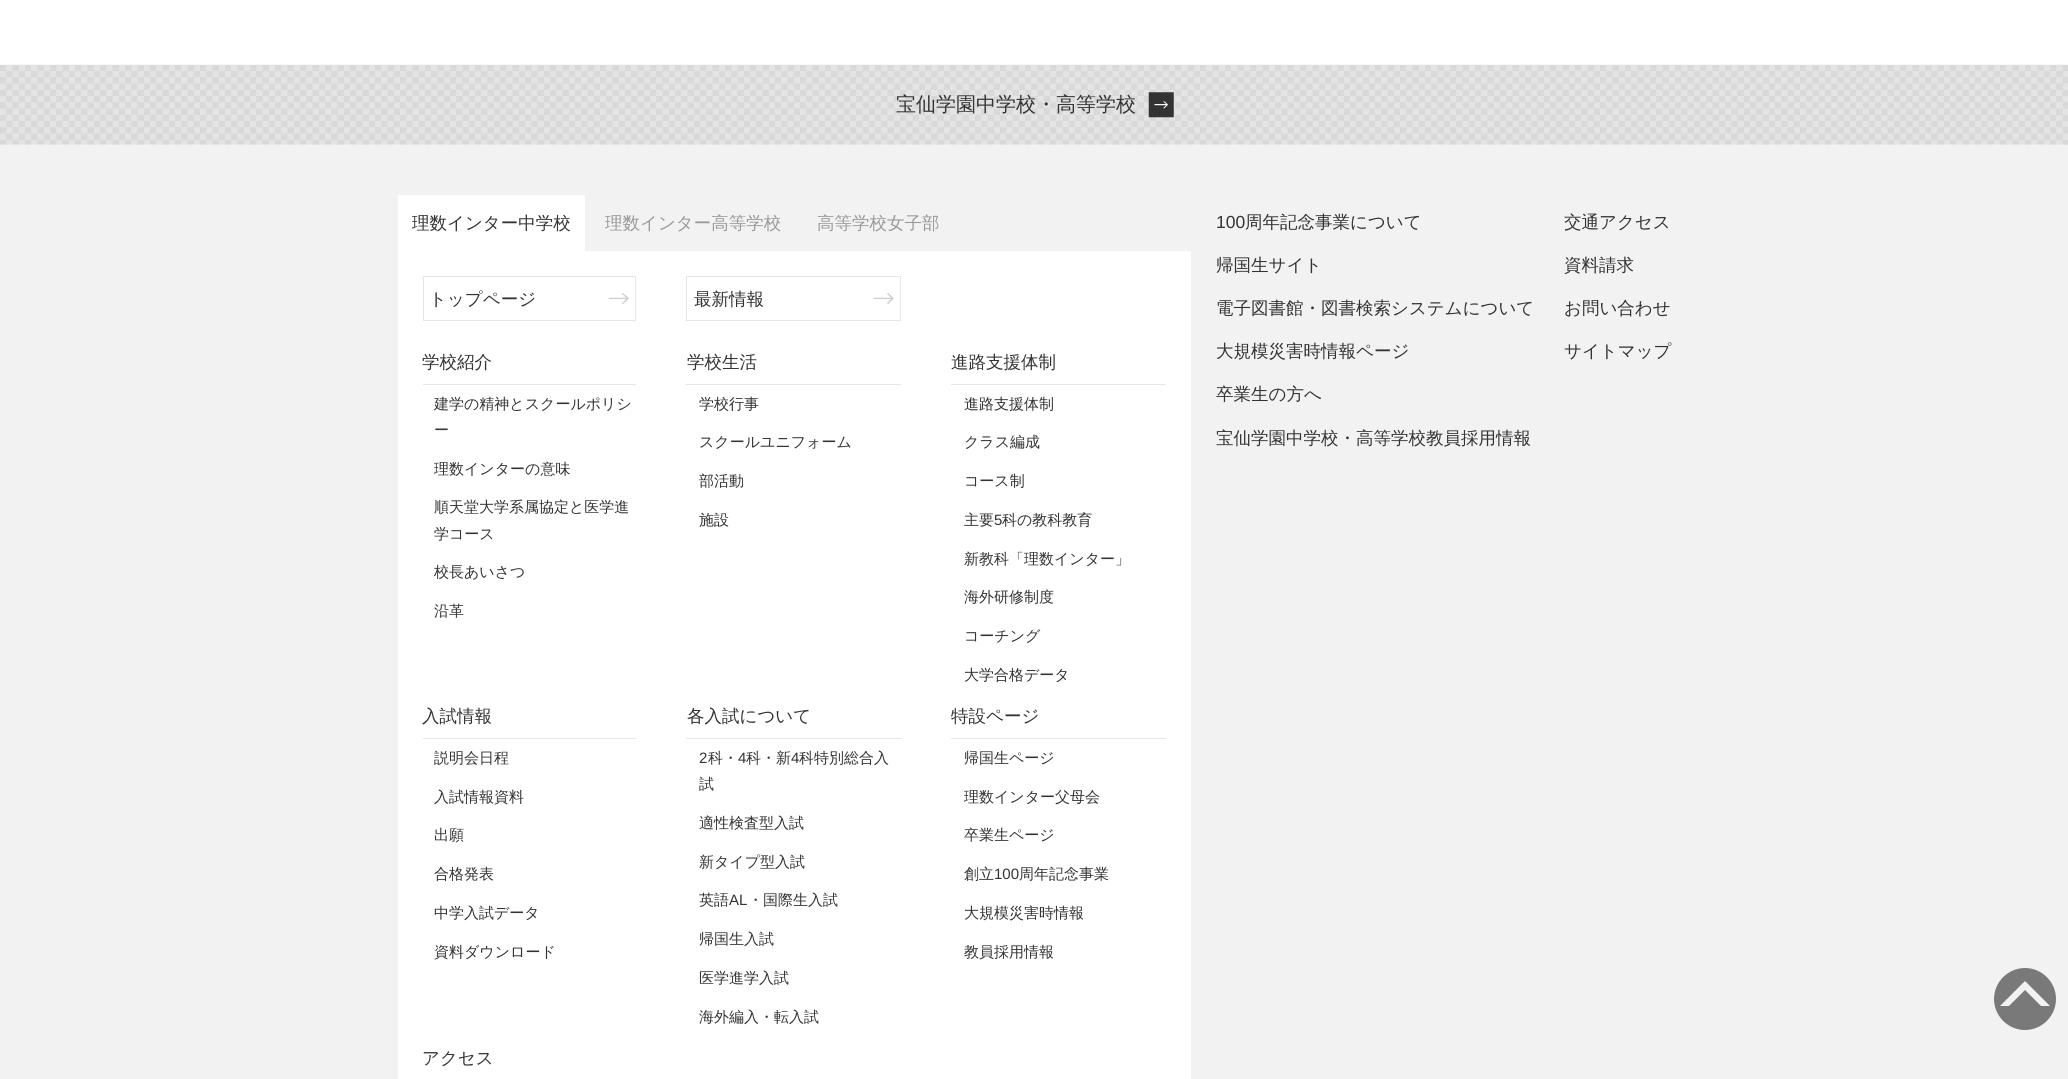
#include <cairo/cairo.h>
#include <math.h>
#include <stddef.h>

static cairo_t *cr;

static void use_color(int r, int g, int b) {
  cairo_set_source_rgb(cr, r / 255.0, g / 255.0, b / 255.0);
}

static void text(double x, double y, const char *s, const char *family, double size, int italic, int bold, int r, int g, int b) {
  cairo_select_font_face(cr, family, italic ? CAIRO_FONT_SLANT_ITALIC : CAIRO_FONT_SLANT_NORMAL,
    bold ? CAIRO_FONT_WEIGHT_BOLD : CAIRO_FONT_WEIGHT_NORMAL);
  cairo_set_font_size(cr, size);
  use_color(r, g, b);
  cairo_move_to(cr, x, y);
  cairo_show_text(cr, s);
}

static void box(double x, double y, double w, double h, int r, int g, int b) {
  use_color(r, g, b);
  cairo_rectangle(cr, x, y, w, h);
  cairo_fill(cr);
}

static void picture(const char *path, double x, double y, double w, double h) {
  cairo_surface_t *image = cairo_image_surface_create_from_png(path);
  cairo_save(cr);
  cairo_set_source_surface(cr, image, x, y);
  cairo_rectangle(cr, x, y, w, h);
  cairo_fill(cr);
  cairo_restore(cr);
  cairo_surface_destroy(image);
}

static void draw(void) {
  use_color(255, 255, 255);
  cairo_paint(cr);
  picture("img_01.png", 0, 64, 2068, 81);
  picture("img_02.png", 1148, 92, 26, 26);
  box(0, 145, 2068, 934, 242, 242, 242);
  box(398, 195, 187, 56, 255, 255, 255);
  box(398, 251, 793, 828, 255, 255, 255);
  picture("img_03.png", 608, 293, 21, 11);
  cairo_rectangle(cr, 423.5, 276.5, 212, 44);
  use_color(230, 230, 230);
  cairo_set_line_width(cr, 1);
  cairo_stroke(cr);
  picture("img_04.png", 873, 293, 21, 11);
  cairo_rectangle(cr, 686.5, 276.5, 214, 44);
  cairo_stroke(cr);
  box(423, 384, 213, 1, 230, 230, 230);
  box(686, 384, 215, 1, 230, 230, 230);
  box(951, 384, 215, 1, 230, 230, 230);
  box(423, 738, 213, 1, 230, 230, 230);
  box(686, 738, 215, 1, 230, 230, 230);
  box(951, 738, 215, 1, 230, 230, 230);
  use_color(121, 121, 121);
  cairo_new_path(cr);
  cairo_move_to(cr, 2025, 968);
  cairo_curve_to(cr, 2008, 968, 1994, 982, 1994, 999);
  cairo_curve_to(cr, 1994, 1016, 2008, 1030, 2025, 1030);
  cairo_curve_to(cr, 2042, 1030, 2056, 1016, 2056, 999);
  cairo_curve_to(cr, 2056, 982, 2042, 968, 2025, 968);
  cairo_close_path(cr);
  cairo_move_to(cr, 2041, 1006);
  cairo_line_to(cr, 2025, 990);
  cairo_line_to(cr, 2009, 1006);
  cairo_line_to(cr, 2000, 1006);
  cairo_line_to(cr, 2025, 981);
  cairo_line_to(cr, 2050, 1006);
  cairo_close_path(cr);
  cairo_fill(cr);
  text(896, 111, "宝仙学園中学校・高等学校", "WenQuanYi Zen Hei Medium", 20, 0, 0, 51, 51, 51);
  text(412, 229, "理数インター中学校", "WenQuanYi Zen Hei Medium", 17.5, 0, 0, 51, 51, 51);
  text(605, 229, "理数インター高等学校", "WenQuanYi Zen Hei Medium", 17.5, 0, 0, 153, 153, 153);
  text(817, 229, "高等学校女子部", "WenQuanYi Zen Hei Medium", 17.5, 0, 0, 153, 153, 153);
  text(429, 305, "トップページ", "WenQuanYi Zen Hei Medium", 17.5, 0, 0, 51, 51, 51);
  text(694, 305, "最新情報", "WenQuanYi Zen Hei Medium", 17.5, 0, 0, 51, 51, 51);
  text(422, 368, "学校紹介", "WenQuanYi Zen Hei Medium", 17.5, 0, 0, 51, 51, 51);
  text(434, 409, "建学の精神とスクールポリシ", "WenQuanYi Zen Hei Medium", 15, 0, 0, 51, 51, 51);
  text(434, 435, "ー", "WenQuanYi Zen Hei Medium", 15, 0, 0, 51, 51, 51);
  text(434, 474, "理数インターの意味", "WenQuanYi Zen Hei Medium", 15, 0, 0, 51, 51, 51);
  text(434, 512, "順天堂大学系属協定と医学進", "WenQuanYi Zen Hei Medium", 15, 0, 0, 51, 51, 51);
  text(434, 539, "学コース", "WenQuanYi Zen Hei Medium", 15, 0, 0, 51, 51, 51);
  text(434, 577, "校長あいさつ", "WenQuanYi Zen Hei Medium", 15, 0, 0, 51, 51, 51);
  text(434, 616, "沿革", "WenQuanYi Zen Hei Medium", 15, 0, 0, 51, 51, 51);
  text(687, 368, "学校生活", "WenQuanYi Zen Hei Medium", 17.5, 0, 0, 51, 51, 51);
  text(699, 409, "学校行事", "WenQuanYi Zen Hei Medium", 15, 0, 0, 51, 51, 51);
  text(699, 447, "スクールユニフォーム", "WenQuanYi Zen Hei Medium", 15, 0, 0, 51, 51, 51);
  text(699, 486, "部活動", "WenQuanYi Zen Hei Medium", 15, 0, 0, 51, 51, 51);
  text(699, 525, "施設", "WenQuanYi Zen Hei Medium", 15, 0, 0, 51, 51, 51);
  text(951, 368, "進路支援体制", "WenQuanYi Zen Hei Medium", 17.5, 0, 0, 51, 51, 51);
  text(964, 409, "進路支援体制", "WenQuanYi Zen Hei Medium", 15, 0, 0, 51, 51, 51);
  text(964, 447, "クラス編成", "WenQuanYi Zen Hei Medium", 15, 0, 0, 51, 51, 51);
  text(964, 486, "コース制", "WenQuanYi Zen Hei Medium", 15, 0, 0, 51, 51, 51);
  text(964, 525, "主要", "WenQuanYi Zen Hei Medium", 15, 0, 0, 51, 51, 51);
  text(994, 525, "5", "Liberation Sans", 15, 0, 0, 51, 51, 51);
  text(1002, 525, "科の教科教育", "WenQuanYi Zen Hei Medium", 15, 0, 0, 51, 51, 51);
  text(964, 564, "新教科「理数インター」", "WenQuanYi Zen Hei Medium", 15, 0, 0, 51, 51, 51);
  text(964, 602, "海外研修制度", "WenQuanYi Zen Hei Medium", 15, 0, 0, 51, 51, 51);
  text(964, 641, "コーチング", "WenQuanYi Zen Hei Medium", 15, 0, 0, 51, 51, 51);
  text(964, 680, "大学合格データ", "WenQuanYi Zen Hei Medium", 15, 0, 0, 51, 51, 51);
  text(422, 722, "入試情報", "WenQuanYi Zen Hei Medium", 17.5, 0, 0, 51, 51, 51);
  text(434, 763, "説明会日程", "WenQuanYi Zen Hei Medium", 15, 0, 0, 51, 51, 51);
  text(434, 802, "入試情報資料", "WenQuanYi Zen Hei Medium", 15, 0, 0, 51, 51, 51);
  text(434, 840, "出願", "WenQuanYi Zen Hei Medium", 15, 0, 0, 51, 51, 51);
  text(434, 879, "合格発表", "WenQuanYi Zen Hei Medium", 15, 0, 0, 51, 51, 51);
  text(434, 918, "中学入試データ", "WenQuanYi Zen Hei Medium", 15, 0, 0, 51, 51, 51);
  text(434, 957, "資料ダウンロード", "WenQuanYi Zen Hei Medium", 15, 0, 0, 51, 51, 51);
  text(687, 722, "各入試について", "WenQuanYi Zen Hei Medium", 17.5, 0, 0, 51, 51, 51);
  text(699, 763, "2", "Liberation Sans", 15, 0, 0, 51, 51, 51);
  text(708, 763, "科・", "WenQuanYi Zen Hei Medium", 15, 0, 0, 51, 51, 51);
  text(738, 763, "4", "Liberation Sans", 15, 0, 0, 51, 51, 51);
  text(746, 763, "科・新", "WenQuanYi Zen Hei Medium", 15, 0, 0, 51, 51, 51);
  text(791, 763, "4", "Liberation Sans", 15, 0, 0, 51, 51, 51);
  text(799, 763, "科特別総合入", "WenQuanYi Zen Hei Medium", 15, 0, 0, 51, 51, 51);
  text(699, 789, "試", "WenQuanYi Zen Hei Medium", 15, 0, 0, 51, 51, 51);
  text(699, 828, "適性検査型入試", "WenQuanYi Zen Hei Medium", 15, 0, 0, 51, 51, 51);
  text(699, 867, "新タイプ型入試", "WenQuanYi Zen Hei Medium", 15, 0, 0, 51, 51, 51);
  text(699, 905, "英語", "WenQuanYi Zen Hei Medium", 15, 0, 0, 51, 51, 51);
  text(729, 905, "AL", "Liberation Sans", 15, 0, 0, 51, 51, 51);
  text(748, 905, "・国際生入試", "WenQuanYi Zen Hei Medium", 15, 0, 0, 51, 51, 51);
  text(699, 944, "帰国生入試", "WenQuanYi Zen Hei Medium", 15, 0, 0, 51, 51, 51);
  text(699, 983, "医学進学入試", "WenQuanYi Zen Hei Medium", 15, 0, 0, 51, 51, 51);
  text(699, 1022, "海外編入・転入試", "WenQuanYi Zen Hei Medium", 15, 0, 0, 51, 51, 51);
  text(951, 722, "特設ページ", "WenQuanYi Zen Hei Medium", 17.5, 0, 0, 51, 51, 51);
  text(964, 763, "帰国生ページ", "WenQuanYi Zen Hei Medium", 15, 0, 0, 51, 51, 51);
  text(964, 802, "理数インター父母会", "WenQuanYi Zen Hei Medium", 15, 0, 0, 51, 51, 51);
  text(964, 840, "卒業生ページ", "WenQuanYi Zen Hei Medium", 15, 0, 0, 51, 51, 51);
  text(964, 879, "創立", "WenQuanYi Zen Hei Medium", 15, 0, 0, 51, 51, 51);
  text(994, 879, "100", "Liberation Sans", 15, 0, 0, 51, 51, 51);
  text(1019, 879, "周年記念事業", "WenQuanYi Zen Hei Medium", 15, 0, 0, 51, 51, 51);
  text(964, 918, "大規模災害時情報", "WenQuanYi Zen Hei Medium", 15, 0, 0, 51, 51, 51);
  text(964, 957, "教員採用情報", "WenQuanYi Zen Hei Medium", 15, 0, 0, 51, 51, 51);
  text(422, 1064, "アクセス", "WenQuanYi Zen Hei Medium", 17.5, 0, 0, 51, 51, 51);
  text(1216, 228, "100", "Liberation Sans", 17.5, 0, 0, 51, 51, 51);
  text(1245, 228, "周年記念事業について", "WenQuanYi Zen Hei Medium", 17.5, 0, 0, 51, 51, 51);
  text(1216, 271, "帰国生サイト", "WenQuanYi Zen Hei Medium", 17.5, 0, 0, 51, 51, 51);
  text(1216, 314, "電子図書館・図書検索システムについて", "WenQuanYi Zen Hei Medium", 17.5, 0, 0, 51, 51, 51);
  text(1216, 357, "大規模災害時情報ページ", "WenQuanYi Zen Hei Medium", 17.5, 0, 0, 51, 51, 51);
  text(1216, 400, "卒業生の方へ", "WenQuanYi Zen Hei Medium", 17.5, 0, 0, 51, 51, 51);
  text(1216, 444, "宝仙学園中学校・高等学校教員採用情報", "WenQuanYi Zen Hei Medium", 17.5, 0, 0, 51, 51, 51);
  text(1564, 228, "交通アクセス", "WenQuanYi Zen Hei Medium", 17.5, 0, 0, 51, 51, 51);
  text(1564, 271, "資料請求", "WenQuanYi Zen Hei Medium", 17.5, 0, 0, 51, 51, 51);
  text(1564, 314, "お問い合わせ", "WenQuanYi Zen Hei Medium", 17.5, 0, 0, 51, 51, 51);
  text(1564, 357, "サイトマップ", "WenQuanYi Zen Hei Medium", 17.5, 0, 0, 51, 51, 51);
}

int main(void) {
  cairo_surface_t *surface = cairo_image_surface_create(CAIRO_FORMAT_RGB24, 2068, 1079);
  cr = cairo_create(surface);
  cairo_font_options_t *options = cairo_font_options_create();
  cairo_font_options_set_hint_metrics(options, CAIRO_HINT_METRICS_OFF);
  cairo_font_options_set_hint_style(options, CAIRO_HINT_STYLE_NONE);
  cairo_set_font_options(cr, options);
  cairo_set_miter_limit(cr, 4);
  draw();
  cairo_surface_write_to_png(surface, "out.png");
  cairo_font_options_destroy(options);
  cairo_destroy(cr);
  cairo_surface_destroy(surface);
  return 0;
}
